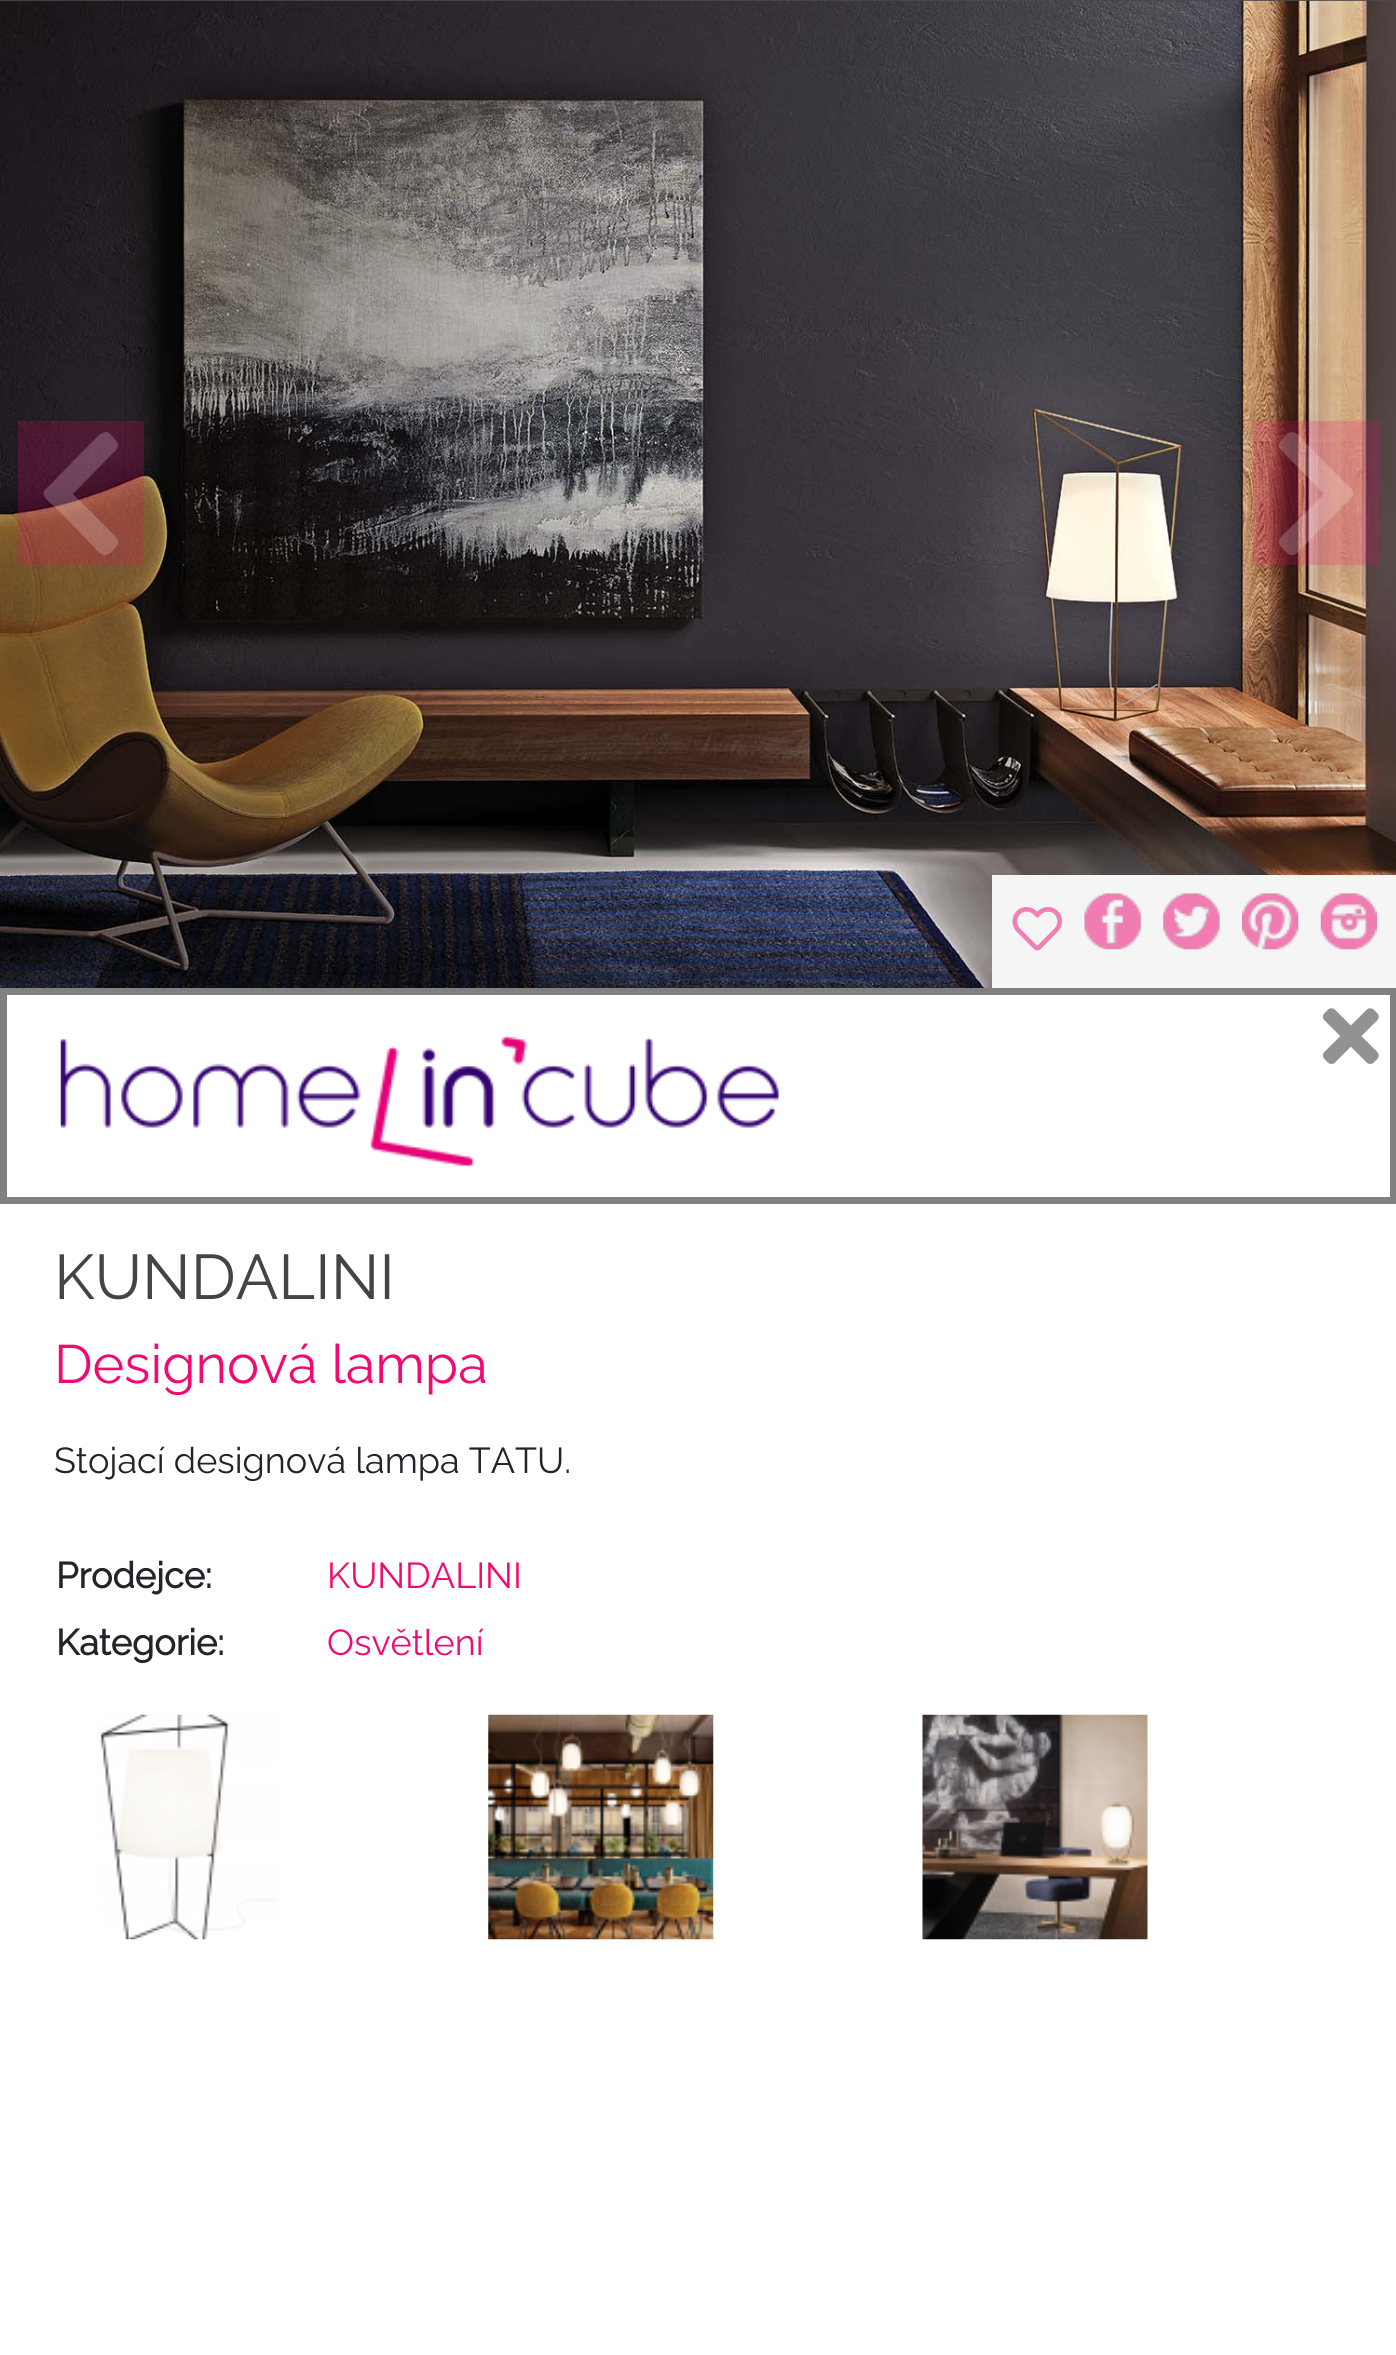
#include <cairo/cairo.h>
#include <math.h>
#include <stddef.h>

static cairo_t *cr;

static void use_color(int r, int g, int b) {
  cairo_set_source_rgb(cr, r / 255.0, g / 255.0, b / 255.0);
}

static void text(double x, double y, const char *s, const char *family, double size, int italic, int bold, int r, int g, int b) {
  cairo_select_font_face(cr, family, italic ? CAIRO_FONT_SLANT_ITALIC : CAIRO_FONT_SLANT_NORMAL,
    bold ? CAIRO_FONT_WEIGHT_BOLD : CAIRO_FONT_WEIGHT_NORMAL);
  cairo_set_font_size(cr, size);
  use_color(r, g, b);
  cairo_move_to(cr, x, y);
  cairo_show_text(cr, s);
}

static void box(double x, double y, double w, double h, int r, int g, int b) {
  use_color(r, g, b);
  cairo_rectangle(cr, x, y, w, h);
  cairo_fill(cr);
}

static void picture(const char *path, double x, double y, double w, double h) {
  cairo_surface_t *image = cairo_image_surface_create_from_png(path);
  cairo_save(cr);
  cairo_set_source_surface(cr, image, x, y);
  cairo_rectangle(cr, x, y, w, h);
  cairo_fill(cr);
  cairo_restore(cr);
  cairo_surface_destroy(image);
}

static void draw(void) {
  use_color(74, 74, 74);
  cairo_paint(cr);
  picture("img_01.png", 0, 0, 1396, 988);
  cairo_set_source_rgba(cr, 0.941, 0.039, 0.443, 0.2);
  cairo_rectangle(cr, 18, 421, 126, 144);
  cairo_fill(cr);
  cairo_set_source_rgba(cr, 1, 1, 1, 0.2);
  cairo_new_path(cr);
  cairo_move_to(cr, 46, 489);
  cairo_line_to(cr, 91, 443);
  cairo_curve_to(cr, 95, 440, 102, 429, 109, 433);
  cairo_line_to(cr, 113, 437);
  cairo_curve_to(cr, 122, 447, 118, 448, 109, 457);
  cairo_line_to(cr, 73, 494);
  cairo_line_to(cr, 116, 537);
  cairo_curve_to(cr, 122, 543, 115, 548, 111, 552);
  cairo_curve_to(cr, 103, 560, 97, 550, 91, 544);
  cairo_line_to(cr, 55, 507);
  cairo_curve_to(cr, 52, 504, 38, 495, 46, 489);
  cairo_close_path(cr);
  cairo_fill(cr);
  cairo_set_source_rgba(cr, 0.941, 0.039, 0.443, 0.2);
  cairo_rectangle(cr, 1253, 421, 126, 144);
  cairo_fill(cr);
  cairo_set_source_rgba(cr, 1, 1, 1, 0.2);
  cairo_new_path(cr);
  cairo_move_to(cr, 1351, 498);
  cairo_line_to(cr, 1306, 544);
  cairo_curve_to(cr, 1303, 547, 1295, 559, 1288, 554);
  cairo_line_to(cr, 1284, 550);
  cairo_curve_to(cr, 1275, 541, 1279, 539, 1288, 530);
  cairo_line_to(cr, 1324, 494);
  cairo_line_to(cr, 1281, 450);
  cairo_curve_to(cr, 1275, 445, 1283, 439, 1286, 435);
  cairo_curve_to(cr, 1294, 427, 1300, 437, 1306, 443);
  cairo_line_to(cr, 1342, 480);
  cairo_curve_to(cr, 1345, 483, 1359, 492, 1351, 498);
  cairo_close_path(cr);
  cairo_fill(cr);
  box(992, 875, 404, 113, 245, 245, 245);
  picture("img_02.png", 1012, 907, 50, 44);
  picture("img_03.png", 1084, 893, 57, 57);
  picture("img_04.png", 1163, 893, 57, 57);
  picture("img_05.png", 1242, 893, 57, 57);
  picture("img_06.png", 1320, 893, 57, 57);
  box(0, 995, 1396, 1360, 255, 255, 255);
  cairo_rectangle(cr, 3.5, 991.5, 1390, 209);
  use_color(128, 128, 128);
  cairo_set_line_width(cr, 7);
  cairo_stroke(cr);
  picture("img_07.png", 60, 1036, 719, 131);
  picture("img_08.png", 1323, 1008, 56, 56);
  picture("img_09.png", 100, 1714, 179, 226);
  picture("img_10.png", 488, 1714, 226, 226);
  picture("img_11.png", 922, 1714, 226, 226);
  text(54, 1299, "KUNDALINI", "Raleway Thin", 63, 0, 0, 68, 68, 68);
  text(54, 1383, "Designová lampa", "Raleway Thin", 54, 0, 0, 240, 10, 113);
  text(54, 1473, "Stojací designová lampa TATU.", "Raleway Thin", 36, 0, 0, 33, 37, 41);
  text(56, 1588, "Prodejce:", "Raleway", 36, 0, 1, 33, 37, 41);
  text(327, 1588, "KUNDALINI", "Raleway Thin", 36, 0, 0, 240, 10, 113);
  text(56, 1655, "Kategorie:", "Raleway", 36, 0, 1, 33, 37, 41);
  text(327, 1655, "Osvětlení", "Raleway Thin", 36, 0, 0, 240, 10, 113);
}

int main(void) {
  cairo_surface_t *surface = cairo_image_surface_create(CAIRO_FORMAT_RGB24, 1396, 2355);
  cr = cairo_create(surface);
  cairo_font_options_t *options = cairo_font_options_create();
  cairo_font_options_set_hint_metrics(options, CAIRO_HINT_METRICS_OFF);
  cairo_font_options_set_hint_style(options, CAIRO_HINT_STYLE_NONE);
  cairo_set_font_options(cr, options);
  cairo_set_miter_limit(cr, 4);
  draw();
  cairo_surface_write_to_png(surface, "out.png");
  cairo_font_options_destroy(options);
  cairo_destroy(cr);
  cairo_surface_destroy(surface);
  return 0;
}
